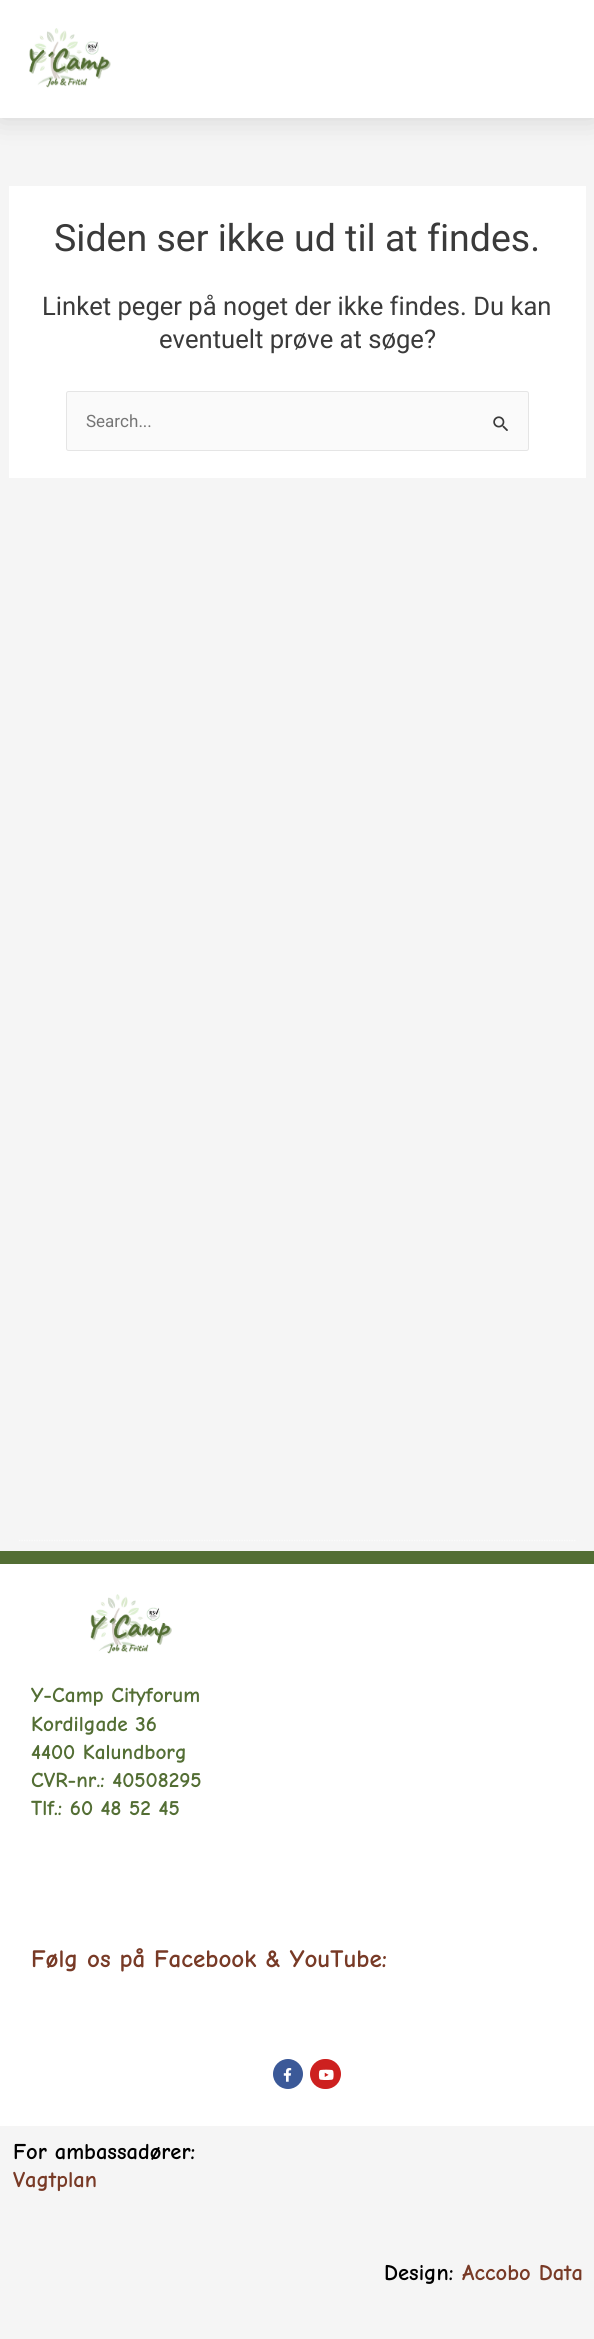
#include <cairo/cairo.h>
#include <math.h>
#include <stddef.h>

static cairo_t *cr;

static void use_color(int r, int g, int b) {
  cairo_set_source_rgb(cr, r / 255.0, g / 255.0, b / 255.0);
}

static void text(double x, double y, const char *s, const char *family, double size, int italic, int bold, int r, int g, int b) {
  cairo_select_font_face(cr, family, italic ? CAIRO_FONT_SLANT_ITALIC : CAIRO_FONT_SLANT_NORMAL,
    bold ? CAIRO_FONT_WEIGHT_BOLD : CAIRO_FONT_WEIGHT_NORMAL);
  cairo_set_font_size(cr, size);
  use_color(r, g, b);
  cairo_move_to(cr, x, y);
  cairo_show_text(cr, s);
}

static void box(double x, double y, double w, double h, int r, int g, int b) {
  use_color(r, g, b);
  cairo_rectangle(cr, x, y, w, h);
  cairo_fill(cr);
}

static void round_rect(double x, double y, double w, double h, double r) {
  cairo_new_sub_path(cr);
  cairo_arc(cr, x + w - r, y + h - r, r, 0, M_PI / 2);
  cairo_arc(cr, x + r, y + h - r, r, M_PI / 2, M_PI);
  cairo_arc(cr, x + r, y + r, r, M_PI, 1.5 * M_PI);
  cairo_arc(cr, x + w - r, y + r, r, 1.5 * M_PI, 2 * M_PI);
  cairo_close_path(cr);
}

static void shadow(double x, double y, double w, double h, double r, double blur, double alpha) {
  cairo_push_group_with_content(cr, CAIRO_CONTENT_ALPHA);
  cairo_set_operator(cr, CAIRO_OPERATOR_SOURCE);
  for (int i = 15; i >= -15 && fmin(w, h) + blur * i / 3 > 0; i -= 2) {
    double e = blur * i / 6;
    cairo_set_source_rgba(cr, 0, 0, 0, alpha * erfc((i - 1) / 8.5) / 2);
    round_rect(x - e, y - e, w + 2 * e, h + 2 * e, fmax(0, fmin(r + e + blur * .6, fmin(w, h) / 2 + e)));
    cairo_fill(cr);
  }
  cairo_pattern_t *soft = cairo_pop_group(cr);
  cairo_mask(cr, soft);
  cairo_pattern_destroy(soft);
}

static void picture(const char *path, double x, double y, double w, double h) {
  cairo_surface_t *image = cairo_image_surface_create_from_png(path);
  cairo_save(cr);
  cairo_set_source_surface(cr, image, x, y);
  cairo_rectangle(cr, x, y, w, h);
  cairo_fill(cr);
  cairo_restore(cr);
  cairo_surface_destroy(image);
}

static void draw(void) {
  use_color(245, 245, 245);
  cairo_paint(cr);
  use_color(0, 0, 0);
  shadow(0, 0, 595, 118, 0, 15, 0.15);
  box(0, 0, 594, 118, 255, 255, 255);
  picture("img_01.png", 29, 28, 82, 60);
  box(9, 186, 577, 292, 255, 255, 255);
  use_color(250, 250, 250);
  round_rect(66.5, 391.5, 462, 59, 2);
  cairo_fill_preserve(cr);
  use_color(229, 229, 229);
  cairo_set_line_width(cr, 1);
  cairo_stroke(cr);
  picture("img_02.png", 493, 416, 15, 15);
  box(0, 1564, 594, 562, 255, 255, 255);
  box(0, 1551, 594, 13, 83, 110, 52);
  cairo_new_path(cr);
  cairo_move_to(cr, 19, 1540.5);
  cairo_line_to(cr, 576, 1540.5);
  use_color(251, 251, 251);
  cairo_set_line_width(cr, 1.2);
  cairo_set_dash(cr, (double[]){1.25, 1.25}, 2, 0);
  cairo_stroke(cr);
  picture("img_03.png", 90, 1594, 82, 60);
  use_color(59, 89, 152);
  cairo_arc(cr, 288, 2074, 15, 0, 2 * M_PI);
  cairo_fill(cr);
  picture("img_04.png", 283, 2068, 9, 14);
  use_color(205, 32, 31);
  round_rect(310, 2059, 31, 30, 15);
  cairo_fill(cr);
  picture("img_05.png", 318, 2069, 16, 11);
  text(54, 251, "Siden ser ikke ud til at findes.", "Roboto", 37.5, 0, 0, 58, 58, 58);
  text(42, 315, "Linket peger på noget der ikke findes. Du kan", "Roboto", 25.6, 0, 0, 58, 58, 58);
  text(159, 348, "eventuelt prøve at søge?", "Roboto", 25.6, 0, 0, 58, 58, 58);
  text(86, 427, "Search...", "Roboto", 17, 0, 0, 117, 117, 117);
  text(31, 1702, "Y-Camp Cityforum", "Comic Neue", 21.25, 0, 1, 83, 110, 52);
  text(31, 1731, "Kordilgade 36", "Comic Neue", 21.25, 0, 1, 83, 110, 52);
  text(31, 1759, "4400 Kalundborg", "Comic Neue", 21.25, 0, 1, 83, 110, 52);
  text(31, 1787, "CVR-nr.: 40508295", "Comic Neue", 21.25, 0, 1, 83, 110, 52);
  text(31, 1815, "Tlf.: 60 48 52 45", "Comic Neue", 21.25, 0, 1, 83, 110, 52);
  text(31, 1967, "Følg os på Facebook & YouTube:", "Comic Neue", 25, 0, 1, 120, 58, 38);
  text(13, 2159, "For ambassadører:", "Comic Neue", 22.5, 0, 1, 0, 0, 0);
  text(13, 2187, "Vagtplan", "Comic Neue", 22.5, 0, 1, 120, 58, 38);
  text(384, 2280, "Design:", "Comic Neue", 22.5, 0, 1, 0, 0, 0);
  text(462, 2280, "Accobo Data", "Comic Neue", 22.5, 0, 1, 120, 58, 38);
}

int main(void) {
  cairo_surface_t *surface = cairo_image_surface_create(CAIRO_FORMAT_RGB24, 594, 2339);
  cr = cairo_create(surface);
  cairo_font_options_t *options = cairo_font_options_create();
  cairo_font_options_set_hint_metrics(options, CAIRO_HINT_METRICS_OFF);
  cairo_font_options_set_hint_style(options, CAIRO_HINT_STYLE_NONE);
  cairo_set_font_options(cr, options);
  cairo_set_miter_limit(cr, 4);
  draw();
  cairo_surface_write_to_png(surface, "out.png");
  cairo_font_options_destroy(options);
  cairo_destroy(cr);
  cairo_surface_destroy(surface);
  return 0;
}
